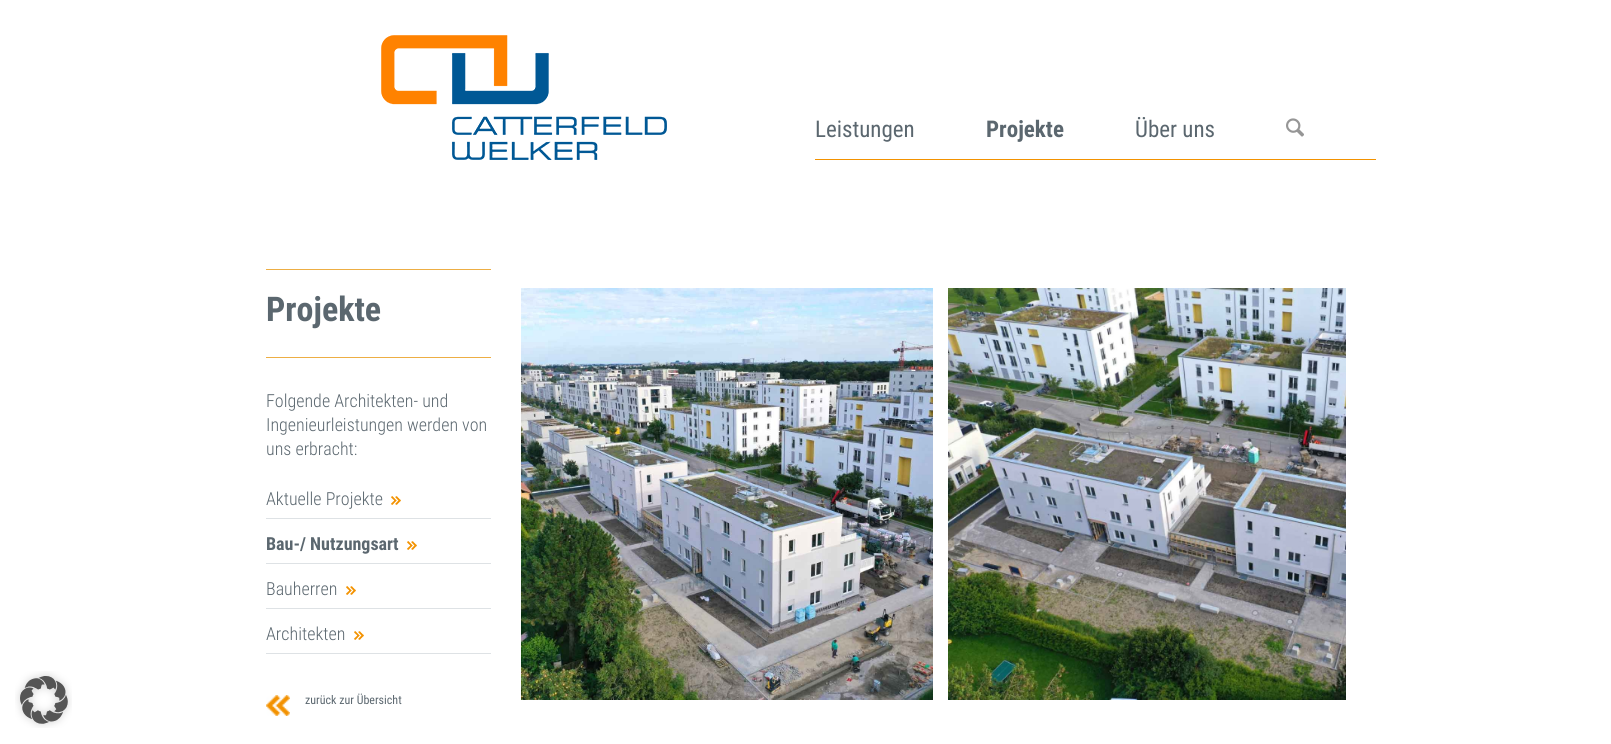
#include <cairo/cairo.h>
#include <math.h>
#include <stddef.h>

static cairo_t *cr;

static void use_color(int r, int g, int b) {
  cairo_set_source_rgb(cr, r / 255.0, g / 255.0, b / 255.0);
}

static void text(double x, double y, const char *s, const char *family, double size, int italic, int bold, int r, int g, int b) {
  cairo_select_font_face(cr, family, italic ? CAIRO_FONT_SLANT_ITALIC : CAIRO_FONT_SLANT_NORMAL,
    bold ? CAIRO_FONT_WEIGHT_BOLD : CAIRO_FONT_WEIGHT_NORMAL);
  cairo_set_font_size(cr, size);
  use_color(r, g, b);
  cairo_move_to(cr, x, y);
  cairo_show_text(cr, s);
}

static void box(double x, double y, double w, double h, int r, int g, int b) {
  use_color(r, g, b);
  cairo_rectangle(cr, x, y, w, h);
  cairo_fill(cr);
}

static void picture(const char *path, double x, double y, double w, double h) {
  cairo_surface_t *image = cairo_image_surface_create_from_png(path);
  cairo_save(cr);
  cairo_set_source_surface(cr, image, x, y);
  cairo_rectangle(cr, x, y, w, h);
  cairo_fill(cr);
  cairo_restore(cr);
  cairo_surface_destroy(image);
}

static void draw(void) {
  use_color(255, 255, 255);
  cairo_paint(cr);
  picture("img_01.png", 15, 671, 57, 57);
  picture("img_02.png", 381, 35, 286, 125);
  box(815, 159, 561, 1, 243, 146, 0);
  picture("img_03.png", 1286, 118, 18, 19);
  box(266, 269, 225, 1, 237, 174, 68);
  box(266, 357, 225, 1, 237, 174, 68);
  box(266, 518, 225, 1, 222, 226, 229);
  picture("img_04.png", 391, 496, 10, 9);
  box(266, 563, 225, 1, 222, 226, 229);
  picture("img_04.png", 407, 541, 10, 9);
  box(266, 608, 225, 1, 222, 226, 229);
  picture("img_04.png", 346, 586, 10, 9);
  box(266, 653, 225, 1, 222, 226, 229);
  picture("img_04.png", 354, 631, 10, 9);
  picture("img_05.png", 266, 695, 24, 21);
  picture("img_06.png", 521, 288, 412, 412);
  picture("img_07.png", 948, 288, 398, 412);
  text(815, 137, "Leistungen", "Roboto Condensed", 23, 0, 0, 91, 103, 111);
  text(986, 137, "Projekte", "Roboto Condensed", 23, 0, 1, 91, 103, 111);
  text(1135, 137, "Über uns", "Roboto Condensed", 23, 0, 0, 91, 103, 111);
  text(266, 321, "Projekte", "Roboto Condensed", 34, 0, 1, 91, 103, 111);
  text(266, 407, "Folgende Architekten- und", "Roboto Condensed Light", 18, 0, 0, 91, 103, 111);
  text(266, 431, "Ingenieurleistungen werden von", "Roboto Condensed Light", 18, 0, 0, 91, 103, 111);
  text(266, 455, "uns erbracht:", "Roboto Condensed Light", 18, 0, 0, 91, 103, 111);
  text(266, 505, "Aktuelle Projekte", "Roboto Condensed Light", 18, 0, 0, 91, 103, 111);
  text(266, 550, "Bau-/ Nutzungsart", "Roboto Condensed", 18, 0, 1, 91, 103, 111);
  text(266, 595, "Bauherren", "Roboto Condensed Light", 18, 0, 0, 91, 103, 111);
  text(266, 640, "Architekten", "Roboto Condensed Light", 18, 0, 0, 91, 103, 111);
  text(305, 704, "zurück zur Übersicht", "Roboto Condensed", 12, 0, 0, 91, 103, 111);
}

int main(void) {
  cairo_surface_t *surface = cairo_image_surface_create(CAIRO_FORMAT_RGB24, 1611, 744);
  cr = cairo_create(surface);
  cairo_font_options_t *options = cairo_font_options_create();
  cairo_font_options_set_hint_metrics(options, CAIRO_HINT_METRICS_OFF);
  cairo_font_options_set_hint_style(options, CAIRO_HINT_STYLE_NONE);
  cairo_set_font_options(cr, options);
  cairo_set_miter_limit(cr, 4);
  draw();
  cairo_surface_write_to_png(surface, "out.png");
  cairo_font_options_destroy(options);
  cairo_destroy(cr);
  cairo_surface_destroy(surface);
  return 0;
}
